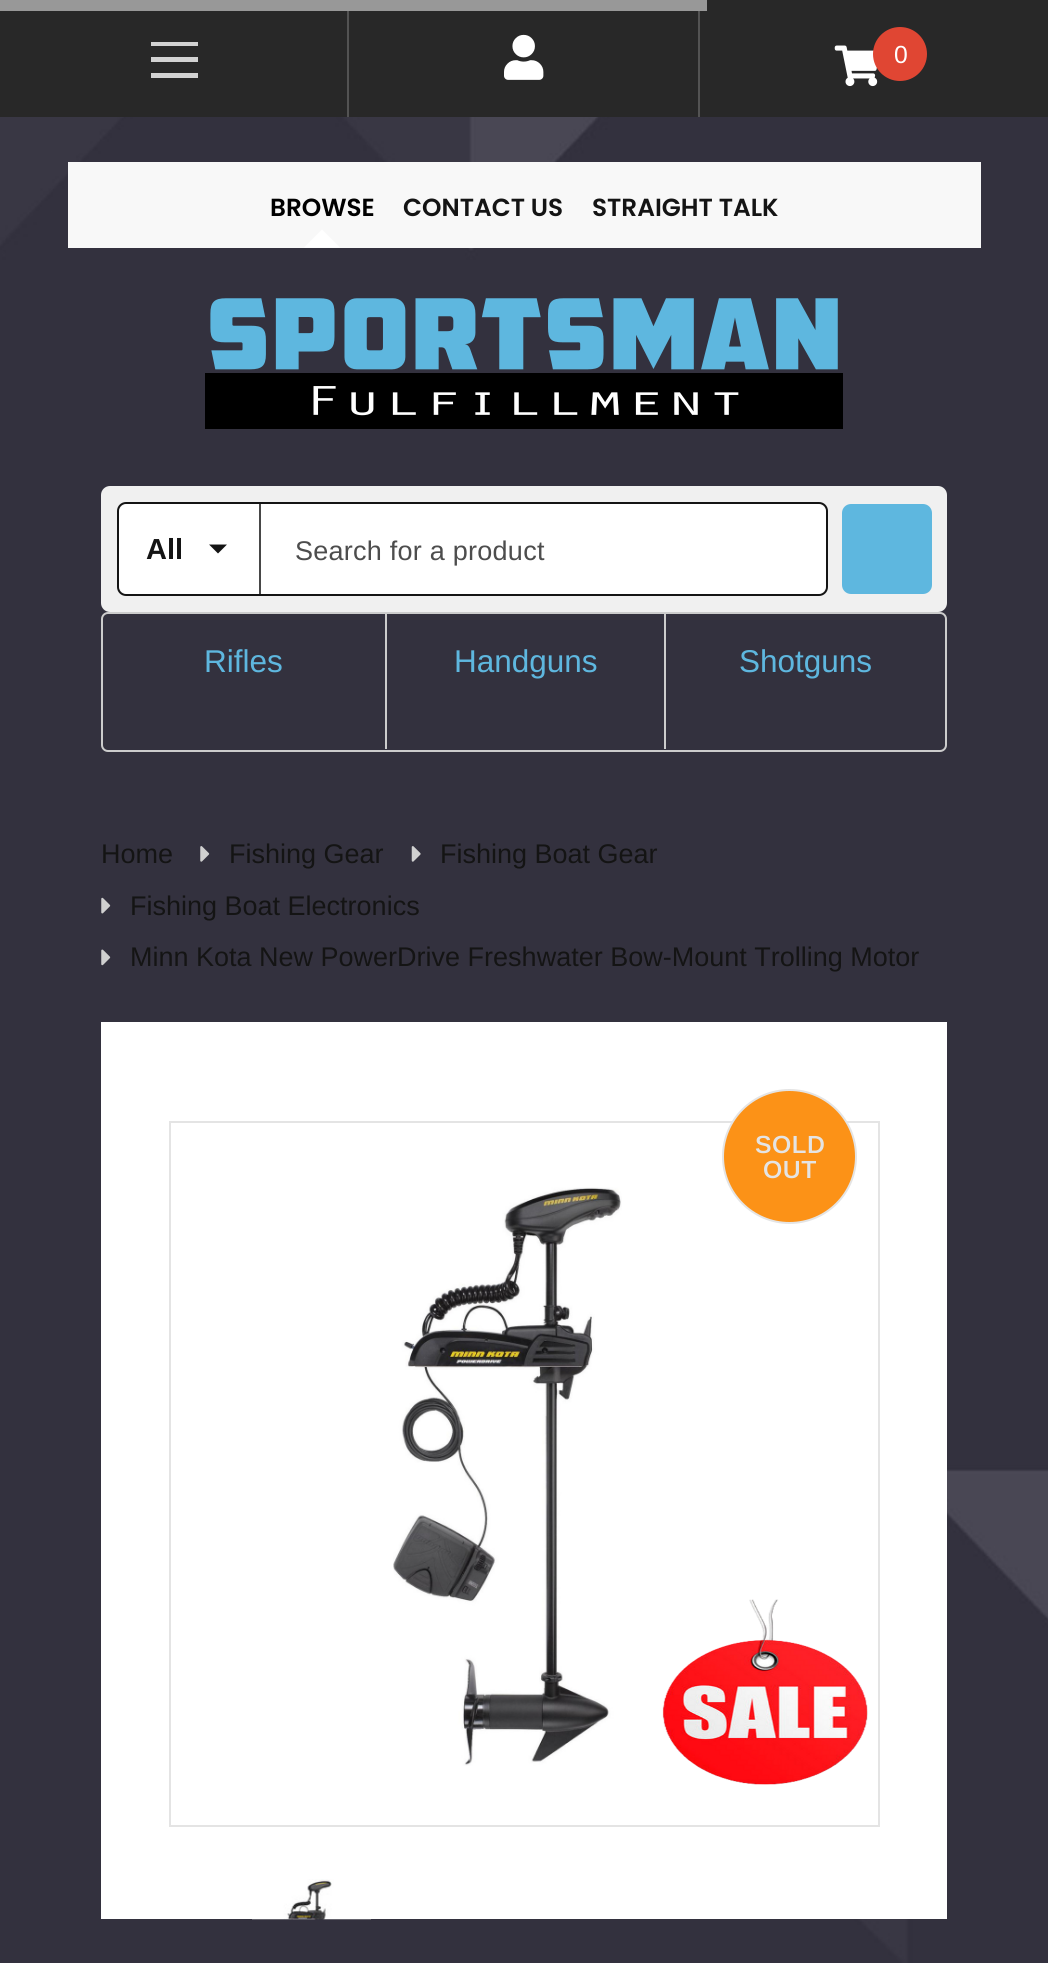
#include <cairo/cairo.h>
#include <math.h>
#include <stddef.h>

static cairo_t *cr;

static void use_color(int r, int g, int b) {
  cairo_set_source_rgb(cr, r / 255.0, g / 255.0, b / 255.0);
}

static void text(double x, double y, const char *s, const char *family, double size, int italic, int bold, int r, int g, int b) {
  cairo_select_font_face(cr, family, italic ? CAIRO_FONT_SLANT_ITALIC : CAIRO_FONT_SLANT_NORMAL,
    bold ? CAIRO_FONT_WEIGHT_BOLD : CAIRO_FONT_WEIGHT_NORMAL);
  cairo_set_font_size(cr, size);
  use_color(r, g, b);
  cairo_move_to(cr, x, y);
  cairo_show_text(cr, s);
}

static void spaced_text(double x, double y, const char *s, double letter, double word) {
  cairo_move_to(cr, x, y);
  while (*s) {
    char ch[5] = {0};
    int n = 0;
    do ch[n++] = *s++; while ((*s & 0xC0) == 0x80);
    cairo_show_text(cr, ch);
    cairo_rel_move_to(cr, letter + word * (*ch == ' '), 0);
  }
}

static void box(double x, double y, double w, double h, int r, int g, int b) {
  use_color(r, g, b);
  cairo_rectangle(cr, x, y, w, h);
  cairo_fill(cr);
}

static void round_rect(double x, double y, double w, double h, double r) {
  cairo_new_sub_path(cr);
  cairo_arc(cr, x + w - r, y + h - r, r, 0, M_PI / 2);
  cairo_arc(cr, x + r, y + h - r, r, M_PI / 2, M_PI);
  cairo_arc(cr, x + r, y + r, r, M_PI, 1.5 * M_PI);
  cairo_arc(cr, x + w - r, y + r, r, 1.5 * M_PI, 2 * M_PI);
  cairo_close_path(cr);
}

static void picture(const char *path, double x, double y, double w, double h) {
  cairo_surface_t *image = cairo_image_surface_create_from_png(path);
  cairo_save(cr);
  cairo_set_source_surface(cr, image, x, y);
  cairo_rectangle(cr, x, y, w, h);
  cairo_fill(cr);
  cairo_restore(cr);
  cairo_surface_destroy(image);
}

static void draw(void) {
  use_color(255, 255, 255);
  cairo_paint(cr);
  picture("img_01.png", 0, 117, 1048, 1846);
  box(0, 0, 1048, 117, 40, 40, 40);
  box(0, 0, 707, 11, 152, 152, 152);
  box(347, 11, 2, 106, 83, 83, 83);
  box(151, 42, 47, 4, 210, 210, 210);
  box(151, 73, 47, 5, 210, 210, 210);
  box(151, 57, 47, 5, 210, 210, 210);
  box(698, 11, 2, 106, 83, 83, 83);
  picture("img_02.png", 504, 34, 40, 46);
  picture("img_03.png", 834, 45, 44, 42);
  use_color(224, 70, 51);
  cairo_arc(cr, 900, 54, 27, 0, 2 * M_PI);
  cairo_fill(cr);
  box(68, 162, 913, 86, 248, 248, 248);
  use_color(255, 255, 255);
  cairo_new_path(cr);
  cairo_move_to(cr, 340, 247.5);
  cairo_line_to(cr, 304, 247.5);
  cairo_line_to(cr, 322, 229.5);
  cairo_close_path(cr);
  cairo_fill(cr);
  picture("img_04.png", 205, 298, 638, 131);
  use_color(240, 240, 240);
  round_rect(101, 486, 846, 126, 9);
  cairo_fill(cr);
  round_rect(118, 503, 709, 92, 8);
  use_color(20, 20, 20);
  cairo_stroke(cr);
  use_color(255, 255, 255);
  cairo_new_path(cr);
  cairo_move_to(cr, 128, 504);
  cairo_line_to(cr, 261, 504);
  cairo_line_to(cr, 261, 594);
  cairo_line_to(cr, 128, 594);
  cairo_curve_to(cr, 123, 594, 119, 590, 119, 585);
  cairo_line_to(cr, 119, 513);
  cairo_curve_to(cr, 119, 508, 123, 504, 128, 504);
  cairo_close_path(cr);
  cairo_fill(cr);
  box(259, 504, 2, 90, 72, 72, 72);
  use_color(20, 20, 20);
  cairo_new_path(cr);
  cairo_move_to(cr, 209, 544.5);
  cairo_line_to(cr, 227, 544.5);
  cairo_line_to(cr, 218, 553.5);
  cairo_close_path(cr);
  cairo_fill(cr);
  use_color(255, 255, 255);
  cairo_new_path(cr);
  cairo_move_to(cr, 261, 504);
  cairo_line_to(cr, 817, 504);
  cairo_curve_to(cr, 822, 504, 826, 508, 826, 513);
  cairo_line_to(cr, 826, 585);
  cairo_curve_to(cr, 826, 590, 822, 594, 817, 594);
  cairo_line_to(cr, 261, 594);
  cairo_close_path(cr);
  cairo_fill(cr);
  use_color(94, 183, 223);
  round_rect(843, 505, 88, 88, 8);
  cairo_fill_preserve(cr);
  cairo_stroke(cr);
  round_rect(102, 613, 844, 138, 6);
  use_color(204, 204, 204);
  cairo_stroke(cr);
  box(385, 614, 2, 135, 204, 204, 204);
  box(664, 614, 2, 135, 204, 204, 204);
  picture("img_05.png", 200, 846, 10, 16);
  picture("img_06.png", 411, 846, 10, 16);
  picture("img_07.png", 101, 897, 10, 17);
  picture("img_08.png", 101, 949, 10, 17);
  box(101, 1022, 846, 897, 255, 255, 255);
  cairo_rectangle(cr, 170, 1122, 709, 704);
  use_color(228, 228, 228);
  cairo_stroke(cr);
  picture("img_09.png", 393, 1187, 229, 579);
  picture("img_10.png", 662, 1599, 206, 186);
  picture("img_11.png", 252, 1879, 119, 41);
  use_color(252, 146, 23);
  cairo_arc(cr, 789.5, 1156.5, 66.5, 0, 2 * M_PI);
  cairo_fill_preserve(cr);
  use_color(228, 228, 228);
  cairo_stroke(cr);
  text(894, 63, "0", "Liberation Sans", 24.75, 0, 0, 255, 255, 255);
  text(270, 216, "BROWSE", "Poppins SemiBold", 24.75, 0, 0, 0, 0, 0);
  text(403, 216, "CONTACT US", "Poppins SemiBold", 24.75, 0, 0, 20, 20, 20);
  text(592, 216, "STRAIGHT TALK", "Poppins SemiBold", 24.75, 0, 0, 20, 20, 20);
  text(146, 559, "All", "Arimo", 29, 0, 1, 20, 20, 20);
  cairo_select_font_face(cr, "Arimo", CAIRO_FONT_SLANT_NORMAL, CAIRO_FONT_WEIGHT_NORMAL);
  cairo_set_font_size(cr, 27);
  use_color(77, 77, 77);
  spaced_text(295, 560, "Search for a product", 0.25, 0);
  text(204, 672, "Rifles", "Arimo", 31.5, 0, 0, 94, 183, 223);
  text(454, 672, "Handguns", "Arimo", 31.5, 0, 0, 94, 183, 223);
  text(739, 672, "Shotguns", "Arimo", 31.5, 0, 0, 94, 183, 223);
  text(101, 863, "Home", "Liberation Sans", 27, 0, 0, 20, 20, 20);
  text(229, 863, "Fishing Gear", "Liberation Sans", 27, 0, 0, 20, 20, 20);
  text(440, 863, "Fishing Boat Gear", "Liberation Sans", 27, 0, 0, 20, 20, 20);
  text(130, 915, "Fishing Boat Electronics", "Liberation Sans", 27, 0, 0, 20, 20, 20);
  text(130, 966, "Minn Kota New PowerDrive Freshwater Bow-Mount Trolling Motor", "Liberation Sans", 27, 0, 0, 20, 20, 20);
  cairo_select_font_face(cr, "Arimo SemiBold", CAIRO_FONT_SLANT_NORMAL, CAIRO_FONT_WEIGHT_NORMAL);
  cairo_set_font_size(cr, 24.75);
  use_color(228, 228, 228);
  spaced_text(755, 1153, "SOLD", 0.5, 0);
  spaced_text(763, 1178, "OUT", 0.5, 0);
}

int main(void) {
  cairo_surface_t *surface = cairo_image_surface_create(CAIRO_FORMAT_RGB24, 1048, 1963);
  cr = cairo_create(surface);
  cairo_font_options_t *options = cairo_font_options_create();
  cairo_font_options_set_hint_metrics(options, CAIRO_HINT_METRICS_OFF);
  cairo_font_options_set_hint_style(options, CAIRO_HINT_STYLE_NONE);
  cairo_set_font_options(cr, options);
  cairo_set_miter_limit(cr, 4);
  draw();
  cairo_surface_write_to_png(surface, "out.png");
  cairo_font_options_destroy(options);
  cairo_destroy(cr);
  cairo_surface_destroy(surface);
  return 0;
}
